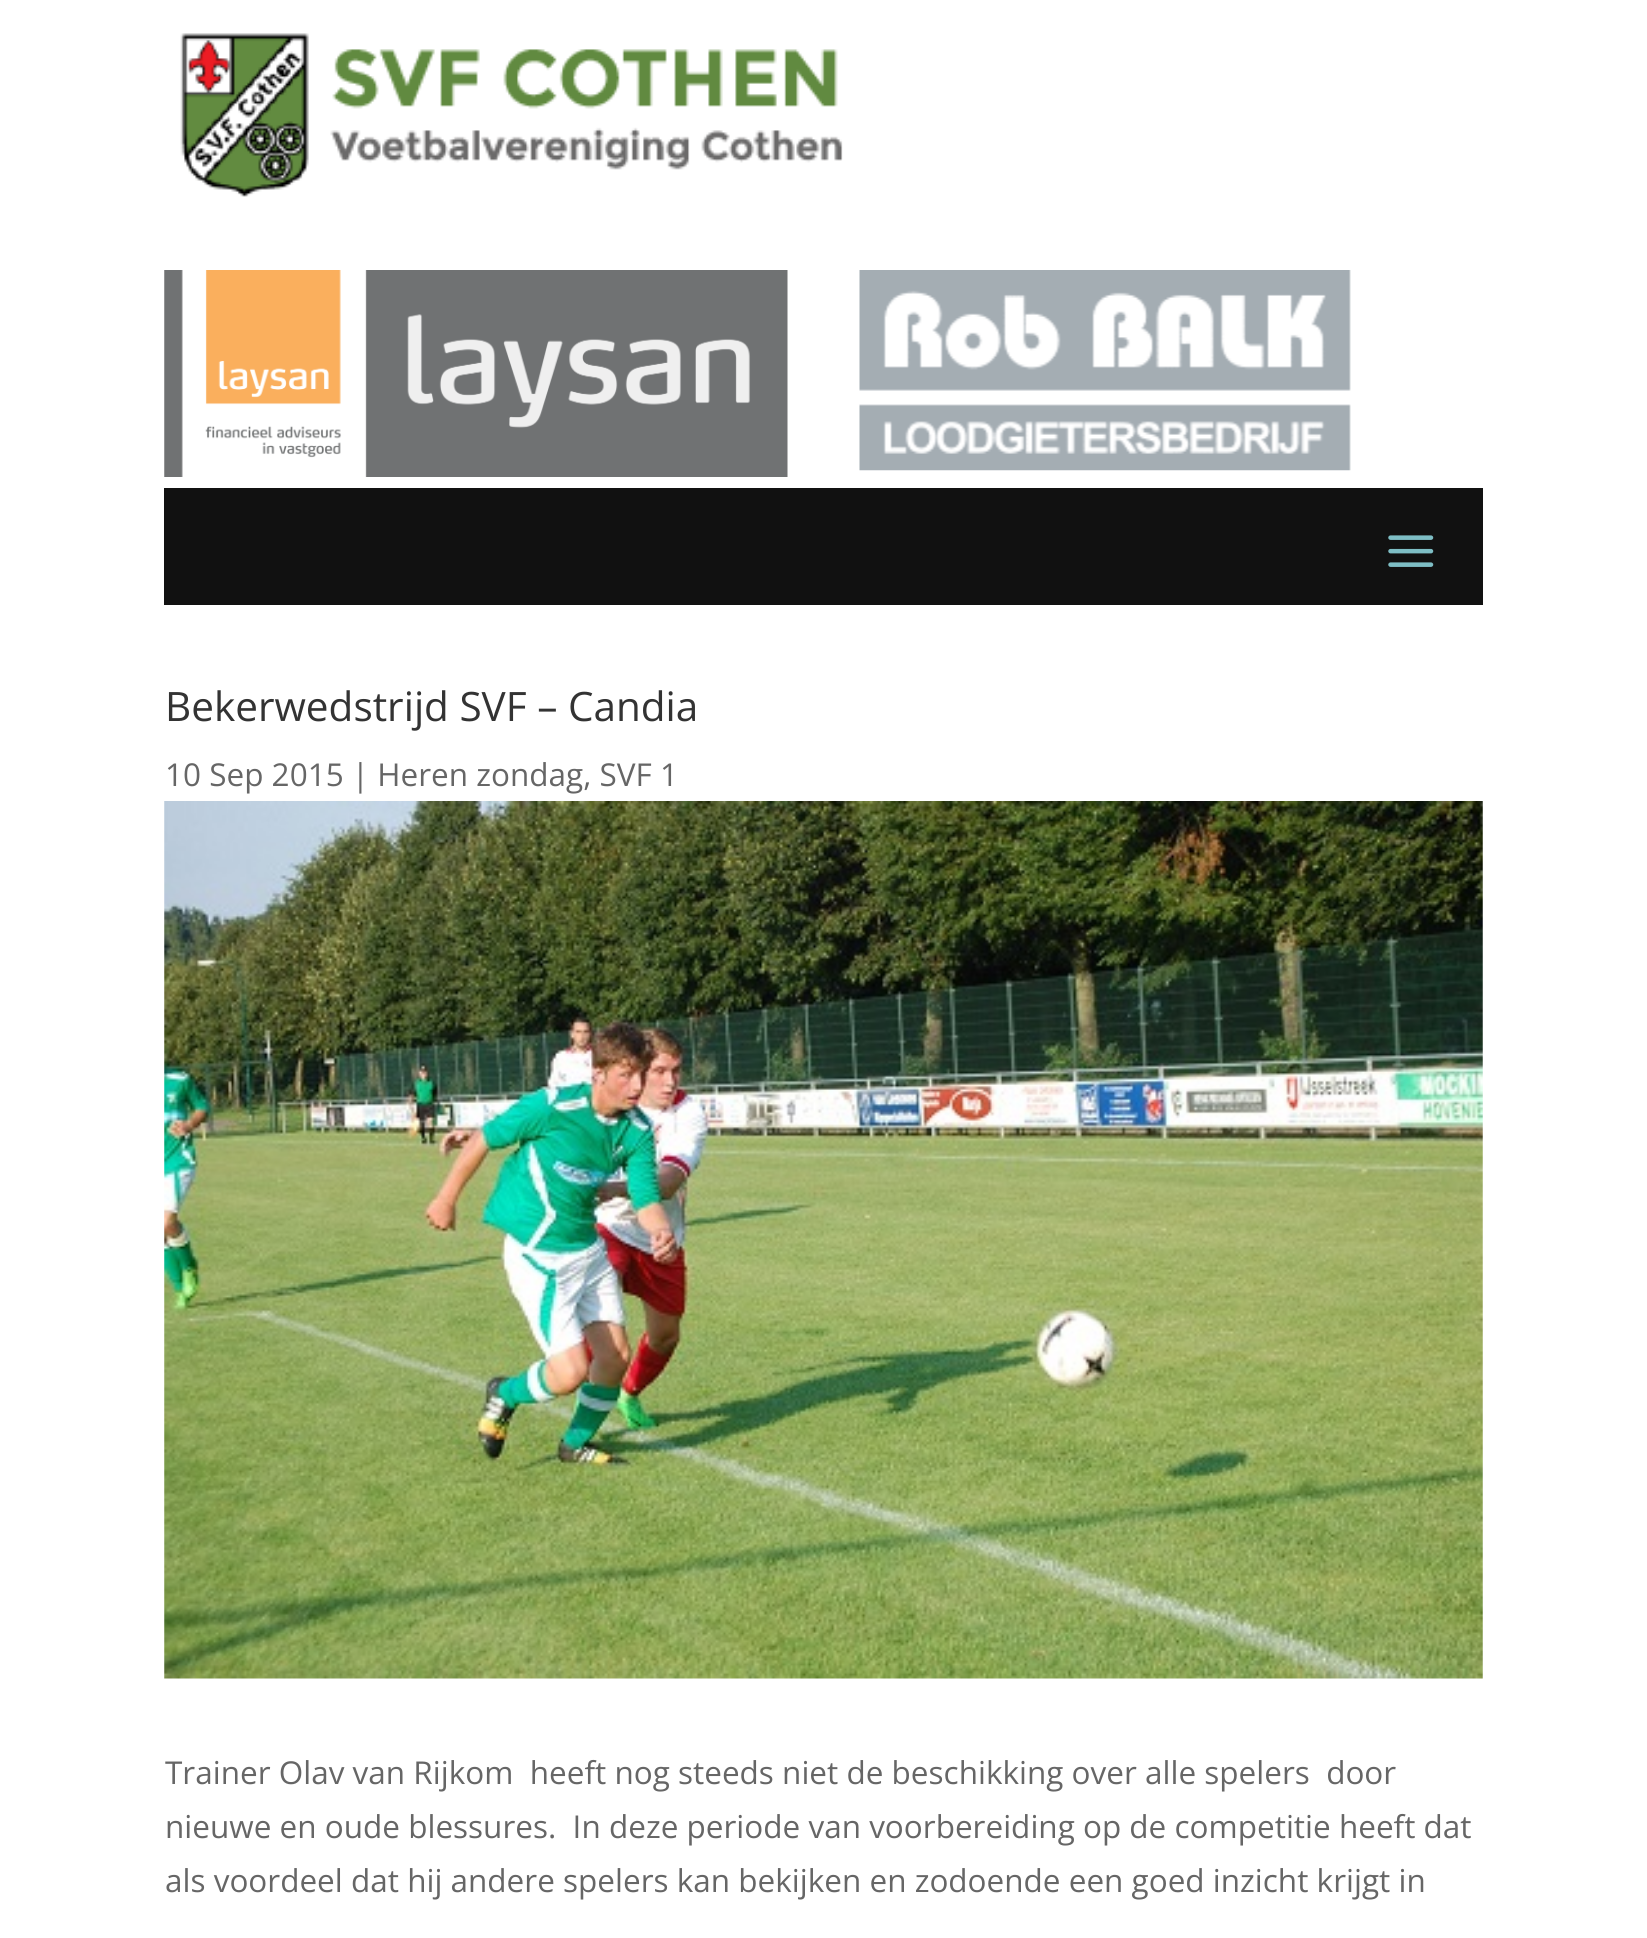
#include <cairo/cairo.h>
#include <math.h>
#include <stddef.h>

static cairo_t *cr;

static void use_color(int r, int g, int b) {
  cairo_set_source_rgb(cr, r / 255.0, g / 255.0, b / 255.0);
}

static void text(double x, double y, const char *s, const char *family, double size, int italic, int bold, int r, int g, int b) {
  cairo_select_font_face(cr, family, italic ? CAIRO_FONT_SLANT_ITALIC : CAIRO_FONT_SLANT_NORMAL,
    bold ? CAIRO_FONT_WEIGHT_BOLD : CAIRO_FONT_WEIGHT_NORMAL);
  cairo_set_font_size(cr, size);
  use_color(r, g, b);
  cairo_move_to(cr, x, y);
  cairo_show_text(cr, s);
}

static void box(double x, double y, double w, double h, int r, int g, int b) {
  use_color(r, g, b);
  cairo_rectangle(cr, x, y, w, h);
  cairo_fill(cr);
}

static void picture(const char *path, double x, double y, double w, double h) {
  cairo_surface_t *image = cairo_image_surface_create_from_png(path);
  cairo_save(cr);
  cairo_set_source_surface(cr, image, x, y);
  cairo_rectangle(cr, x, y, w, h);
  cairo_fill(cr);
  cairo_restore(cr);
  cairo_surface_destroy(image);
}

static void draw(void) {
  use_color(255, 255, 255);
  cairo_paint(cr);
  picture("img_01.png", 180, 33, 663, 164);
  picture("img_02.png", 164, 270, 624, 207);
  picture("img_03.png", 859, 270, 492, 201);
  box(164, 488, 1319, 117, 17, 17, 17);
  picture("img_04.png", 1388, 535, 46, 32);
  picture("img_05.png", 164, 801, 1319, 878);
  text(165, 721, "Bekerwedstrijd SVF – Candia", "Open Sans", 40.5, 0, 0, 51, 51, 51);
  text(165, 786, "10 Sep 2015 | Heren zondag, SVF 1", "Open Sans", 31.5, 0, 0, 102, 102, 102);
  text(165, 1784, "Trainer Olav van Rijkom  heeft nog steeds niet de beschikking over alle spelers  door", "Open Sans", 31.5, 0, 0, 102, 102, 102);
  text(165, 1838, "nieuwe en oude blessures.  In deze periode van voorbereiding op de competitie heeft dat", "Open Sans", 31.5, 0, 0, 102, 102, 102);
  text(165, 1892, "als voordeel dat hij andere spelers kan bekijken en zodoende een goed inzicht krijgt in", "Open Sans", 31.5, 0, 0, 102, 102, 102);
}

int main(void) {
  cairo_surface_t *surface = cairo_image_surface_create(CAIRO_FORMAT_RGB24, 1647, 1938);
  cr = cairo_create(surface);
  cairo_font_options_t *options = cairo_font_options_create();
  cairo_font_options_set_hint_metrics(options, CAIRO_HINT_METRICS_OFF);
  cairo_font_options_set_hint_style(options, CAIRO_HINT_STYLE_NONE);
  cairo_set_font_options(cr, options);
  cairo_set_miter_limit(cr, 4);
  draw();
  cairo_surface_write_to_png(surface, "out.png");
  cairo_font_options_destroy(options);
  cairo_destroy(cr);
  cairo_surface_destroy(surface);
  return 0;
}
